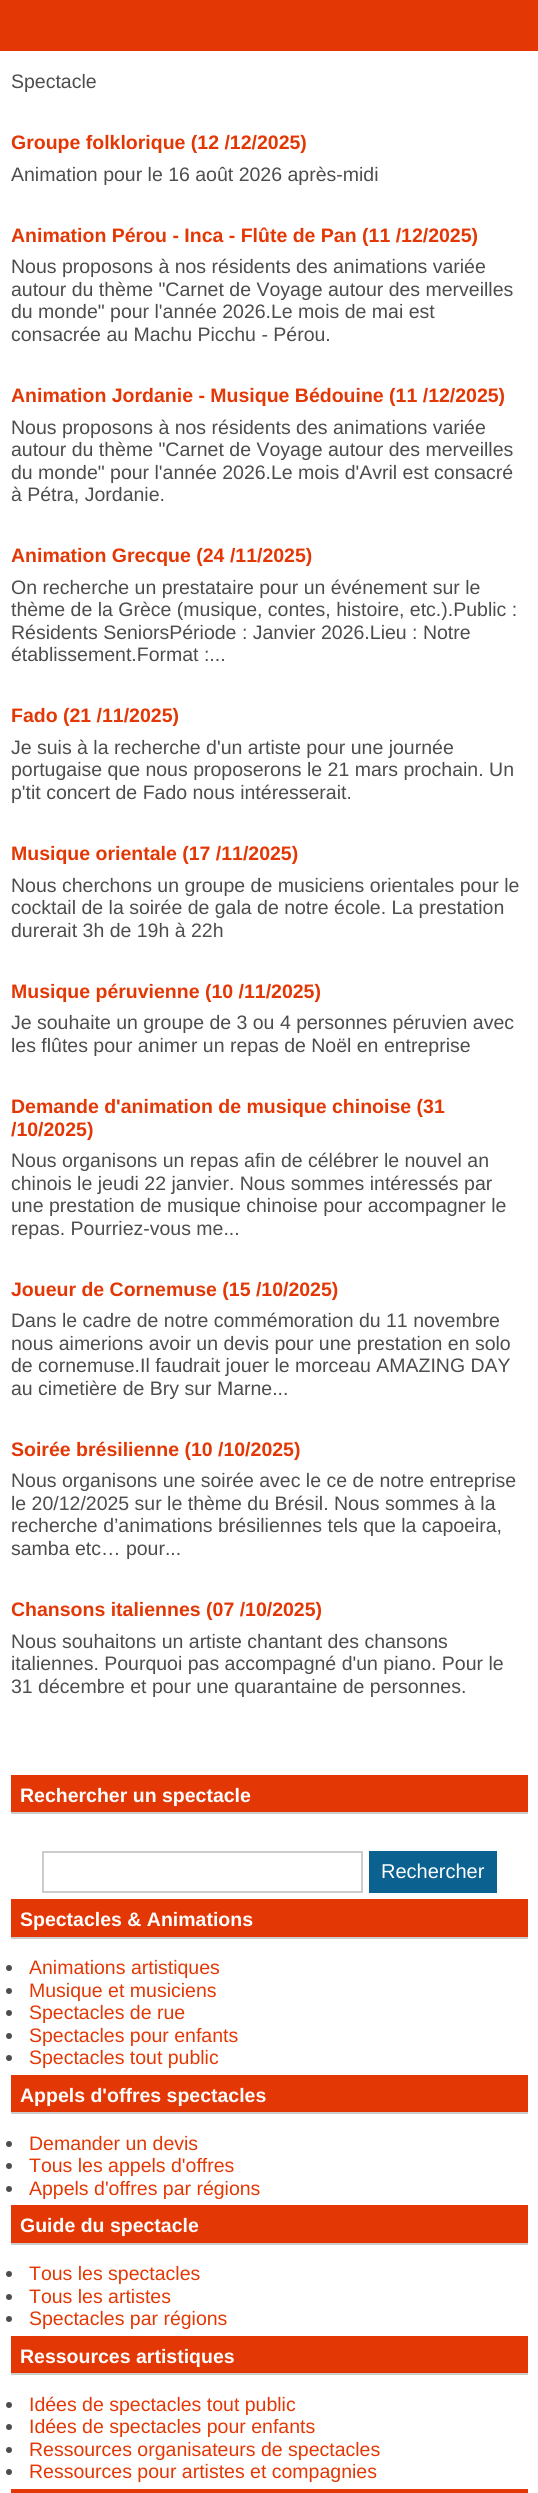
#include <cairo/cairo.h>
#include <math.h>
#include <stddef.h>

static cairo_t *cr;

static void use_color(int r, int g, int b) {
  cairo_set_source_rgb(cr, r / 255.0, g / 255.0, b / 255.0);
}

static void text(double x, double y, const char *s, const char *family, double size, int italic, int bold, int r, int g, int b) {
  cairo_select_font_face(cr, family, italic ? CAIRO_FONT_SLANT_ITALIC : CAIRO_FONT_SLANT_NORMAL,
    bold ? CAIRO_FONT_WEIGHT_BOLD : CAIRO_FONT_WEIGHT_NORMAL);
  cairo_set_font_size(cr, size);
  use_color(r, g, b);
  cairo_move_to(cr, x, y);
  cairo_show_text(cr, s);
}

static void box(double x, double y, double w, double h, int r, int g, int b) {
  use_color(r, g, b);
  cairo_rectangle(cr, x, y, w, h);
  cairo_fill(cr);
}

static void draw(void) {
  use_color(255, 255, 255);
  cairo_paint(cr);
  box(0, 0, 538, 51, 227, 56, 5);
  box(11, 1775, 517, 37, 227, 56, 5);
  box(11, 1812, 517, 2, 204, 204, 204);
  cairo_rectangle(cr, 43, 1852, 319, 40);
  cairo_stroke(cr);
  box(369, 1851, 128, 42, 11, 97, 144);
  box(11, 1899, 517, 38, 227, 56, 5);
  box(11, 1937, 517, 2, 204, 204, 204);
  use_color(77, 77, 77);
  cairo_arc(cr, 9, 1968, 3, 0, 2 * M_PI);
  cairo_fill(cr);
  cairo_arc(cr, 9, 1991, 3, 0, 2 * M_PI);
  cairo_fill(cr);
  cairo_arc(cr, 9, 2013, 3, 0, 2 * M_PI);
  cairo_fill(cr);
  cairo_arc(cr, 9, 2036, 3, 0, 2 * M_PI);
  cairo_fill(cr);
  cairo_arc(cr, 9, 2058, 3, 0, 2 * M_PI);
  cairo_fill(cr);
  box(11, 2075, 517, 37, 227, 56, 5);
  box(11, 2112, 517, 2, 204, 204, 204);
  use_color(77, 77, 77);
  cairo_arc(cr, 9, 2144, 3, 0, 2 * M_PI);
  cairo_fill(cr);
  cairo_arc(cr, 9, 2166, 3, 0, 2 * M_PI);
  cairo_fill(cr);
  cairo_arc(cr, 9, 2189, 3, 0, 2 * M_PI);
  cairo_fill(cr);
  box(11, 2205, 517, 38, 227, 56, 5);
  box(11, 2243, 517, 2, 204, 204, 204);
  use_color(77, 77, 77);
  cairo_arc(cr, 9, 2274, 3, 0, 2 * M_PI);
  cairo_fill(cr);
  cairo_arc(cr, 9, 2297, 3, 0, 2 * M_PI);
  cairo_fill(cr);
  cairo_arc(cr, 9, 2319, 3, 0, 2 * M_PI);
  cairo_fill(cr);
  box(11, 2336, 517, 37, 227, 56, 5);
  box(11, 2373, 517, 2, 204, 204, 204);
  use_color(77, 77, 77);
  cairo_arc(cr, 9, 2405, 3, 0, 2 * M_PI);
  cairo_fill(cr);
  cairo_arc(cr, 9, 2427, 3, 0, 2 * M_PI);
  cairo_fill(cr);
  cairo_arc(cr, 9, 2450, 3, 0, 2 * M_PI);
  cairo_fill(cr);
  cairo_arc(cr, 9, 2472, 3, 0, 2 * M_PI);
  cairo_fill(cr);
  box(11, 2489, 517, 4, 227, 56, 5);
  text(11, 88, "Spectacle", "Liberation Sans", 19.5, 0, 0, 77, 77, 77);
  text(11, 149, "Groupe folklorique (12 /12/2025)", "Liberation Sans", 19.5, 0, 1, 227, 56, 5);
  text(11, 181, "Animation pour le 16 août 2026 après-midi", "Liberation Sans", 19.5, 0, 0, 77, 77, 77);
  text(11, 242, "Animation Pérou - Inca - Flûte de Pan (11 /12/2025)", "Liberation Sans", 19.5, 0, 1, 227, 56, 5);
  text(11, 273, "Nous proposons à nos résidents des animations variée", "Liberation Sans", 19.5, 0, 0, 77, 77, 77);
  text(11, 296, "autour du thème \"Carnet de Voyage autour des merveilles", "Liberation Sans", 19.5, 0, 0, 77, 77, 77);
  text(11, 318, "du monde\" pour l'année 2026.Le mois de mai est", "Liberation Sans", 19.5, 0, 0, 77, 77, 77);
  text(11, 341, "consacrée au Machu Picchu - Pérou.", "Liberation Sans", 19.5, 0, 0, 77, 77, 77);
  text(11, 402, "Animation Jordanie - Musique Bédouine (11 /12/2025)", "Liberation Sans", 19.5, 0, 1, 227, 56, 5);
  text(11, 434, "Nous proposons à nos résidents des animations variée", "Liberation Sans", 19.5, 0, 0, 77, 77, 77);
  text(11, 456, "autour du thème \"Carnet de Voyage autour des merveilles", "Liberation Sans", 19.5, 0, 0, 77, 77, 77);
  text(11, 479, "du monde\" pour l'année 2026.Le mois d'Avril est consacré", "Liberation Sans", 19.5, 0, 0, 77, 77, 77);
  text(11, 501, "à Pétra, Jordanie.", "Liberation Sans", 19.5, 0, 0, 77, 77, 77);
  text(11, 562, "Animation Grecque (24 /11/2025)", "Liberation Sans", 19.5, 0, 1, 227, 56, 5);
  text(11, 594, "On recherche un prestataire pour un événement sur le", "Liberation Sans", 19.5, 0, 0, 77, 77, 77);
  text(11, 616, "thème de la Grèce (musique, contes, histoire, etc.).Public :", "Liberation Sans", 19.5, 0, 0, 77, 77, 77);
  text(11, 639, "Résidents SeniorsPériode : Janvier 2026.Lieu : Notre", "Liberation Sans", 19.5, 0, 0, 77, 77, 77);
  text(11, 661, "établissement.Format :...", "Liberation Sans", 19.5, 0, 0, 77, 77, 77);
  text(11, 722, "Fado (21 /11/2025)", "Liberation Sans", 19.5, 0, 1, 227, 56, 5);
  text(11, 754, "Je suis à la recherche d'un artiste pour une journée", "Liberation Sans", 19.5, 0, 0, 77, 77, 77);
  text(11, 776, "portugaise que nous proposerons le 21 mars prochain. Un", "Liberation Sans", 19.5, 0, 0, 77, 77, 77);
  text(11, 799, "p'tit concert de Fado nous intéresserait.", "Liberation Sans", 19.5, 0, 0, 77, 77, 77);
  text(11, 860, "Musique orientale (17 /11/2025)", "Liberation Sans", 19.5, 0, 1, 227, 56, 5);
  text(11, 892, "Nous cherchons un groupe de musiciens orientales pour le", "Liberation Sans", 19.5, 0, 0, 77, 77, 77);
  text(11, 914, "cocktail de la soirée de gala de notre école. La prestation", "Liberation Sans", 19.5, 0, 0, 77, 77, 77);
  text(11, 937, "durerait 3h de 19h à 22h", "Liberation Sans", 19.5, 0, 0, 77, 77, 77);
  text(11, 998, "Musique péruvienne (10 /11/2025)", "Liberation Sans", 19.5, 0, 1, 227, 56, 5);
  text(11, 1029, "Je souhaite un groupe de 3 ou 4 personnes péruvien avec", "Liberation Sans", 19.5, 0, 0, 77, 77, 77);
  cairo_save(cr);
  cairo_rectangle(cr, 11, 1011, 517, 45);
  cairo_clip(cr);
  text(11, 1052, "les flûtes pour animer un repas de Noël en entreprise", "Liberation Sans", 19.5, 0, 0, 77, 77, 77);
  cairo_restore(cr);
  text(11, 1113, "Demande d'animation de musique chinoise (31", "Liberation Sans", 19.5, 0, 1, 227, 56, 5);
  text(11, 1136, "/10/2025)", "Liberation Sans", 19.5, 0, 1, 227, 56, 5);
  text(11, 1167, "Nous organisons un repas afin de célébrer le nouvel an", "Liberation Sans", 19.5, 0, 0, 77, 77, 77);
  text(11, 1190, "chinois le jeudi 22 janvier. Nous sommes intéressés par", "Liberation Sans", 19.5, 0, 0, 77, 77, 77);
  text(11, 1212, "une prestation de musique chinoise pour accompagner le", "Liberation Sans", 19.5, 0, 0, 77, 77, 77);
  text(11, 1235, "repas. Pourriez-vous me...", "Liberation Sans", 19.5, 0, 0, 77, 77, 77);
  text(11, 1296, "Joueur de Cornemuse (15 /10/2025)", "Liberation Sans", 19.5, 0, 1, 227, 56, 5);
  text(11, 1327, "Dans le cadre de notre commémoration du 11 novembre", "Liberation Sans", 19.5, 0, 0, 77, 77, 77);
  text(11, 1350, "nous aimerions avoir un devis pour une prestation en solo", "Liberation Sans", 19.5, 0, 0, 77, 77, 77);
  text(11, 1372, "de cornemuse.Il faudrait jouer le morceau AMAZING DAY", "Liberation Sans", 19.5, 0, 0, 77, 77, 77);
  text(11, 1395, "au cimetière de Bry sur Marne...", "Liberation Sans", 19.5, 0, 0, 77, 77, 77);
  text(11, 1456, "Soirée brésilienne (10 /10/2025)", "Liberation Sans", 19.5, 0, 1, 227, 56, 5);
  text(11, 1487, "Nous organisons une soirée avec le ce de notre entreprise", "Liberation Sans", 19.5, 0, 0, 77, 77, 77);
  text(11, 1510, "le 20/12/2025 sur le thème du Brésil. Nous sommes à la", "Liberation Sans", 19.5, 0, 0, 77, 77, 77);
  text(11, 1532, "recherche d’animations brésiliennes tels que la capoeira,", "Liberation Sans", 19.5, 0, 0, 77, 77, 77);
  text(11, 1555, "samba etc… pour...", "Liberation Sans", 19.5, 0, 0, 77, 77, 77);
  text(11, 1616, "Chansons italiennes (07 /10/2025)", "Liberation Sans", 19.5, 0, 1, 227, 56, 5);
  text(11, 1648, "Nous souhaitons un artiste chantant des chansons", "Liberation Sans", 19.5, 0, 0, 77, 77, 77);
  text(11, 1670, "italiennes. Pourquoi pas accompagné d'un piano. Pour le", "Liberation Sans", 19.5, 0, 0, 77, 77, 77);
  cairo_save(cr);
  cairo_rectangle(cr, 11, 1629, 517, 68);
  cairo_clip(cr);
  text(11, 1693, "31 décembre et pour une quarantaine de personnes.", "Liberation Sans", 19.5, 0, 0, 77, 77, 77);
  cairo_restore(cr);
  text(20, 1802, "Rechercher un spectacle", "Liberation Sans", 19.5, 0, 1, 255, 255, 255);
  text(381, 1878, "Rechercher", "Liberation Sans", 20, 0, 0, 255, 255, 255);
  text(20, 1926, "Spectacles & Animations", "Liberation Sans", 19.5, 0, 1, 255, 255, 255);
  text(29, 1974, "Animations artistiques", "Liberation Sans", 19.5, 0, 0, 227, 56, 5);
  text(29, 1997, "Musique et musiciens", "Liberation Sans", 19.5, 0, 0, 227, 56, 5);
  text(29, 2019, "Spectacles de rue", "Liberation Sans", 19.5, 0, 0, 227, 56, 5);
  text(29, 2042, "Spectacles pour enfants", "Liberation Sans", 19.5, 0, 0, 227, 56, 5);
  text(29, 2064, "Spectacles tout public", "Liberation Sans", 19.5, 0, 0, 227, 56, 5);
  text(20, 2102, "Appels d'offres spectacles", "Liberation Sans", 19.5, 0, 1, 255, 255, 255);
  text(29, 2150, "Demander un devis", "Liberation Sans", 19.5, 0, 0, 227, 56, 5);
  text(29, 2172, "Tous les appels d'offres", "Liberation Sans", 19.5, 0, 0, 227, 56, 5);
  text(29, 2195, "Appels d'offres par régions", "Liberation Sans", 19.5, 0, 0, 227, 56, 5);
  text(20, 2232, "Guide du spectacle", "Liberation Sans", 19.5, 0, 1, 255, 255, 255);
  text(29, 2280, "Tous les spectacles", "Liberation Sans", 19.5, 0, 0, 227, 56, 5);
  text(29, 2303, "Tous les artistes", "Liberation Sans", 19.5, 0, 0, 227, 56, 5);
  text(29, 2325, "Spectacles par régions", "Liberation Sans", 19.5, 0, 0, 227, 56, 5);
  text(20, 2363, "Ressources artistiques", "Liberation Sans", 19.5, 0, 1, 255, 255, 255);
  text(29, 2411, "Idées de spectacles tout public", "Liberation Sans", 19.5, 0, 0, 227, 56, 5);
  text(29, 2433, "Idées de spectacles pour enfants", "Liberation Sans", 19.5, 0, 0, 227, 56, 5);
  text(29, 2456, "Ressources organisateurs de spectacles", "Liberation Sans", 19.5, 0, 0, 227, 56, 5);
  text(29, 2478, "Ressources pour artistes et compagnies", "Liberation Sans", 19.5, 0, 0, 227, 56, 5);
}

int main(void) {
  cairo_surface_t *surface = cairo_image_surface_create(CAIRO_FORMAT_RGB24, 538, 2493);
  cr = cairo_create(surface);
  cairo_font_options_t *options = cairo_font_options_create();
  cairo_font_options_set_hint_metrics(options, CAIRO_HINT_METRICS_OFF);
  cairo_font_options_set_hint_style(options, CAIRO_HINT_STYLE_NONE);
  cairo_set_font_options(cr, options);
  cairo_set_miter_limit(cr, 4);
  draw();
  cairo_surface_write_to_png(surface, "out.png");
  cairo_font_options_destroy(options);
  cairo_destroy(cr);
  cairo_surface_destroy(surface);
  return 0;
}
